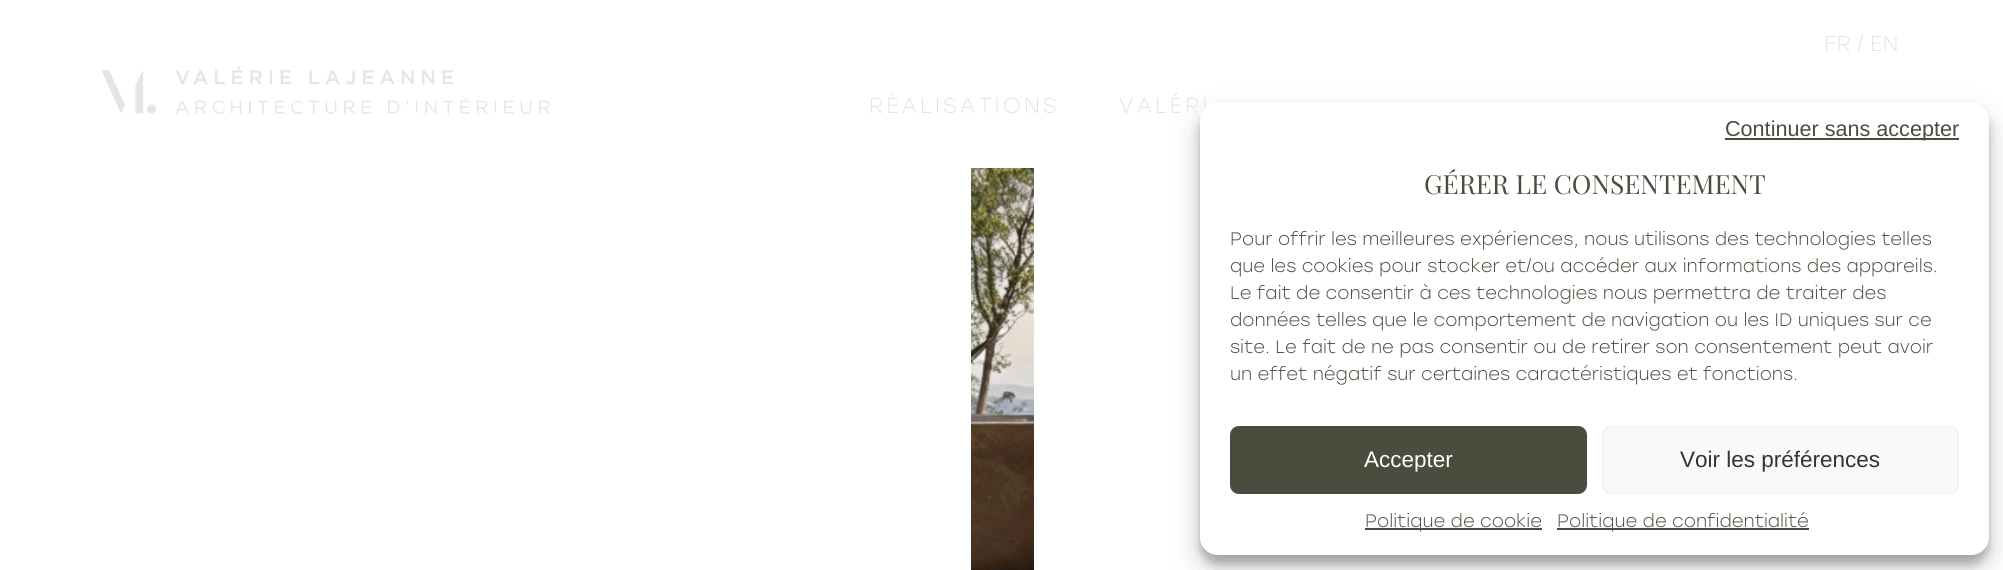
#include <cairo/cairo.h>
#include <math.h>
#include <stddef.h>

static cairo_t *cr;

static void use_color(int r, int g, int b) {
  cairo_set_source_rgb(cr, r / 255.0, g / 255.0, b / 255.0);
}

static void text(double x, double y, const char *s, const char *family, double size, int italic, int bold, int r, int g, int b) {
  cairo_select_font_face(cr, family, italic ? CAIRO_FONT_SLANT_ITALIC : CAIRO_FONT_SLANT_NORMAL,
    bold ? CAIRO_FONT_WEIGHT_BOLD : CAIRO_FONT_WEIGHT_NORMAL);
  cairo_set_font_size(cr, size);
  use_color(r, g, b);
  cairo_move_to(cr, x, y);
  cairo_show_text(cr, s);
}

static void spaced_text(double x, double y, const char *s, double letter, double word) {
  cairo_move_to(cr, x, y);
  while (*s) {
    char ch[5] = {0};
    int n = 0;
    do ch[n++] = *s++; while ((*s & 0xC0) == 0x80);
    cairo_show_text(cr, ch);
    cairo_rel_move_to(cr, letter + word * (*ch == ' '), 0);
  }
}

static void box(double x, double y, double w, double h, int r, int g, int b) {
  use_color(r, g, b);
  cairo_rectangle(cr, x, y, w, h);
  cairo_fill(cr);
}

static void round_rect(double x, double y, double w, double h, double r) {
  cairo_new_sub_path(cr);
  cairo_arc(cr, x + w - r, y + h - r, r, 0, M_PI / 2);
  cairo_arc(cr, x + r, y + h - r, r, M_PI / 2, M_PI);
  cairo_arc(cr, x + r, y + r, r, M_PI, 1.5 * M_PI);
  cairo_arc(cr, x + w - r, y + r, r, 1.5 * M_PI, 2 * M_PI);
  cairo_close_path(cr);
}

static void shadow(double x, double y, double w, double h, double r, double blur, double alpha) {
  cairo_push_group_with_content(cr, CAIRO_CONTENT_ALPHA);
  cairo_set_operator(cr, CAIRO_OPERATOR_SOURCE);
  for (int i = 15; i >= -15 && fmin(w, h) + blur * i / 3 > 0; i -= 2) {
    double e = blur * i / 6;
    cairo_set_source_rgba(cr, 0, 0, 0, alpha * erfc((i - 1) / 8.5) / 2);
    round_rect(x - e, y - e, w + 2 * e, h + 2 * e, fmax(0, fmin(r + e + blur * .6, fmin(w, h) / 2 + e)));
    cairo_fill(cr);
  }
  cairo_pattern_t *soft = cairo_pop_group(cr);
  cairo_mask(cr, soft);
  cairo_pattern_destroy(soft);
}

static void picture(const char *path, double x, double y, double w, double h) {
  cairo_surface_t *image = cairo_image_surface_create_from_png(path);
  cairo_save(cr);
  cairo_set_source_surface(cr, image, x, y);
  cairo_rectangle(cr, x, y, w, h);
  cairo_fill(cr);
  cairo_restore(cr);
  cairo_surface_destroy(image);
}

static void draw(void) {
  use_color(255, 255, 255);
  cairo_paint(cr);
  picture("img_01.png", 101, 66, 449, 48);
  picture("img_02.png", 971, 168, 63, 402);
  use_color(0, 0, 0);
  shadow(1200, 111, 789, 453, 18, 4.5, 0.23);
  shadow(1200, 117, 789, 453, 18, 15, 0.19);
  text(1824, 51, "FR", "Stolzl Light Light", 21.6, 0, 0, 228, 229, 227);
  text(1857, 51, "/", "Stolzl Light Light", 21.6, 0, 0, 228, 229, 227);
  text(1870, 51, "EN", "Stolzl Light Light", 21.6, 0, 0, 228, 229, 227);
  spaced_text(869, 113, "RÉALISATIONS", 3, 0);
  spaced_text(1119, 113, "VALÉRI", 3, 0);
  use_color(255, 255, 255);
  round_rect(1200, 102, 789, 453, 18);
  cairo_fill(cr);
  box(1725, 138, 234, 2, 73, 77, 61);
  text(1725, 136, "Continuer sans accepter", "Liberation Sans", 21.6, 0, 0, 73, 77, 61);
  round_rect(1231, 427, 355, 66, 8);
  cairo_fill_preserve(cr);
  cairo_stroke(cr);
  text(1364, 467, "Accepter", "Liberation Sans", 22.5, 0, 0, 255, 255, 255);
  use_color(249, 249, 249);
  round_rect(1603, 427, 355, 66, 8);
  cairo_fill_preserve(cr);
  use_color(242, 242, 242);
  cairo_stroke(cr);
  text(1680, 467, "Voir les préférences", "Liberation Sans", 22.5, 0, 0, 51, 51, 51);
  text(1424, 194, "GÉRER LE CONSENTEMENT", "Playfair Display", 26.4, 0, 0, 73, 77, 61);
  text(1230, 245, "Pour offrir les meilleures expériences, nous utilisons des technologies telles", "Stolzl Light Light", 18, 0, 0, 73, 77, 61);
  text(1230, 272, "que les cookies pour stocker et/ou accéder aux informations des appareils.", "Stolzl Light Light", 18, 0, 0, 73, 77, 61);
  text(1230, 299, "Le fait de consentir à ces technologies nous permettra de traiter des", "Stolzl Light Light", 18, 0, 0, 73, 77, 61);
  text(1230, 326, "données telles que le comportement de navigation ou les ID uniques sur ce", "Stolzl Light Light", 18, 0, 0, 73, 77, 61);
  text(1230, 353, "site. Le fait de ne pas consentir ou de retirer son consentement peut avoir", "Stolzl Light Light", 18, 0, 0, 73, 77, 61);
  text(1230, 380, "un effet négatif sur certaines caractéristiques et fonctions.", "Stolzl Light Light", 18, 0, 0, 73, 77, 61);
  box(1365, 528, 177, 2, 73, 77, 61);
  text(1365, 527, "Politique de cookie", "Stolzl Light Light", 18, 0, 0, 73, 77, 61);
  box(1557, 528, 252, 2, 73, 77, 61);
  text(1557, 527, "Politique de confidentialité", "Stolzl Light Light", 18, 0, 0, 73, 77, 61);
}

int main(void) {
  cairo_surface_t *surface = cairo_image_surface_create(CAIRO_FORMAT_RGB24, 2003, 570);
  cr = cairo_create(surface);
  cairo_font_options_t *options = cairo_font_options_create();
  cairo_font_options_set_hint_metrics(options, CAIRO_HINT_METRICS_OFF);
  cairo_font_options_set_hint_style(options, CAIRO_HINT_STYLE_NONE);
  cairo_set_font_options(cr, options);
  cairo_set_miter_limit(cr, 4);
  draw();
  cairo_surface_write_to_png(surface, "out.png");
  cairo_font_options_destroy(options);
  cairo_destroy(cr);
  cairo_surface_destroy(surface);
  return 0;
}
